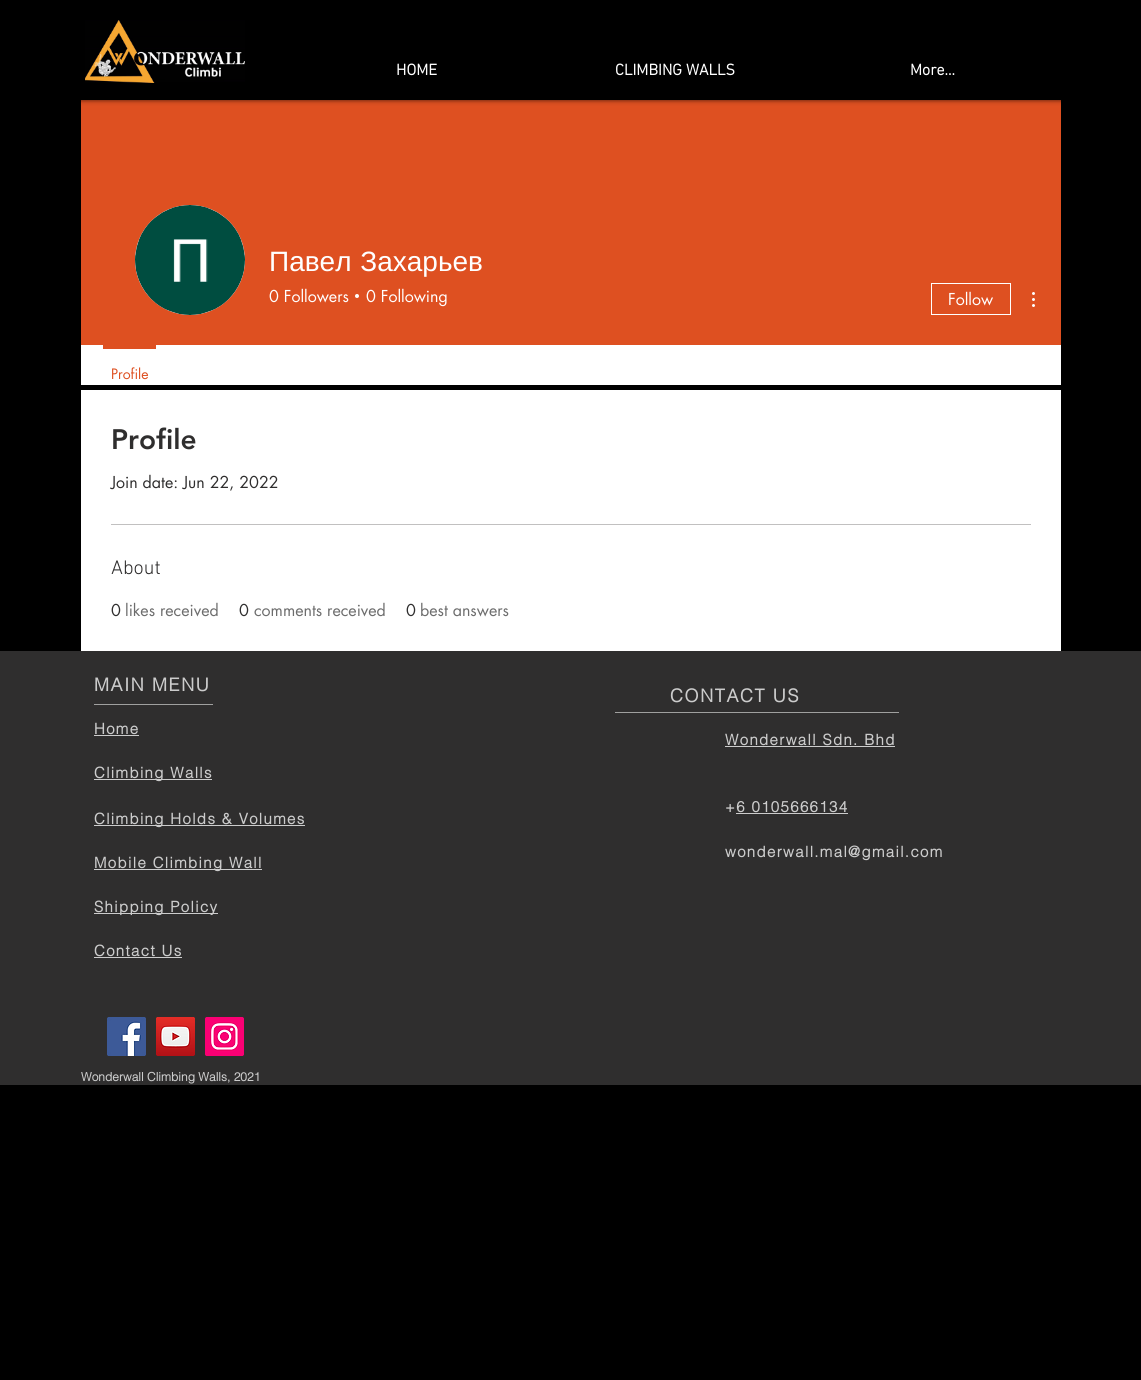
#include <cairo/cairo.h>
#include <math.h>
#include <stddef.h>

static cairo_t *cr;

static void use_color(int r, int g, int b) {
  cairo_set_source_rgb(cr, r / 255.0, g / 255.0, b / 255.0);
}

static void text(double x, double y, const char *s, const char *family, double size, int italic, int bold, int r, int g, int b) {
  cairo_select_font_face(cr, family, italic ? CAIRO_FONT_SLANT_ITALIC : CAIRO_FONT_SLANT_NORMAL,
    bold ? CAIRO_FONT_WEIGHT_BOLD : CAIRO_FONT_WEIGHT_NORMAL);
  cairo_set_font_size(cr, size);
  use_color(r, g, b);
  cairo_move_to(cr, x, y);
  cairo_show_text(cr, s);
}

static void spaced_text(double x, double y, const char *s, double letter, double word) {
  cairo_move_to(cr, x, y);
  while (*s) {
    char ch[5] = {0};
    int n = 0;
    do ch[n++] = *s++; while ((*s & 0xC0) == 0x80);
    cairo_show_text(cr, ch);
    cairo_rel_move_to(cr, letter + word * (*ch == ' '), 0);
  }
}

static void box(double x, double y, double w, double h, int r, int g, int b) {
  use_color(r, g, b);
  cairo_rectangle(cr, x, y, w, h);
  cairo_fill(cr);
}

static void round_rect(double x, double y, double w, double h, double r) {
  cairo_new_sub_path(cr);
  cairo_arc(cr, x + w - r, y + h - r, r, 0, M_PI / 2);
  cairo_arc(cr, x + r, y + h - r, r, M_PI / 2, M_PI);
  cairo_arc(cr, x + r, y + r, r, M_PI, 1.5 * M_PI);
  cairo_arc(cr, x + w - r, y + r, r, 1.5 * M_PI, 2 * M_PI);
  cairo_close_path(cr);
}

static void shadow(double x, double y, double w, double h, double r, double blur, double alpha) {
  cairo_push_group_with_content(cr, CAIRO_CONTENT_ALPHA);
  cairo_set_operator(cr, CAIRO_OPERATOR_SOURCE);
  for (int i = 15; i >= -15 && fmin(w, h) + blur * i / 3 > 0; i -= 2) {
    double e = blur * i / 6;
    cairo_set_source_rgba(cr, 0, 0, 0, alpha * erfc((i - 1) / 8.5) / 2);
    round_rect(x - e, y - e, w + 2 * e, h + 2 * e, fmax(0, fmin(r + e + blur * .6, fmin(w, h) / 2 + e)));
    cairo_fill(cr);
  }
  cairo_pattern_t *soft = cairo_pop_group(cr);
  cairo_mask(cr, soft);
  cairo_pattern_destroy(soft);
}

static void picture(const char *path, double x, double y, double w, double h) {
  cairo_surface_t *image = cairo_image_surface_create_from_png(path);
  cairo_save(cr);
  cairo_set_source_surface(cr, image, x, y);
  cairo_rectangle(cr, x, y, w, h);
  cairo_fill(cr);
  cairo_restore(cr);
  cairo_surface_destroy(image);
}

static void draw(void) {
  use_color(0, 0, 0);
  cairo_paint(cr);
  box(81, 100, 980, 245, 222, 80, 33);
  use_color(0, 0, 0);
  shadow(0, 0, 1141, 100, 0, 2.5, 0.7);
  picture("img_01.png", 85, 20, 160, 63);
  use_color(216, 216, 216);
  cairo_arc(cr, 190, 260, 55, 0, 2 * M_PI);
  cairo_fill(cr);
  picture("img_02.png", 135, 205, 110, 110);
  use_color(255, 255, 255);
  cairo_arc(cr, 357, 296, 2, 0, 2 * M_PI);
  cairo_fill(cr);
  cairo_rectangle(cr, 931.5, 283.5, 79, 31);
  cairo_set_line_width(cr, 1);
  cairo_stroke(cr);
  picture("img_03.png", 1032, 292, 3, 15);
  box(81, 345, 980, 40, 255, 255, 255);
  box(103, 345, 53, 4, 222, 80, 33);
  box(81, 390, 980, 261, 255, 255, 255);
  box(111, 524, 920, 1, 193, 192, 192);
  box(0, 651, 1141, 434, 47, 46, 46);
  box(94, 735, 45, 1, 204, 204, 204);
  box(94, 779, 118, 1, 204, 204, 204);
  box(94, 825, 211, 1, 204, 204, 204);
  box(94, 869, 168, 1, 204, 204, 204);
  box(94, 913, 124, 1, 204, 204, 204);
  box(94, 957, 88, 1, 204, 204, 204);
  box(94, 704, 119, 1, 160, 160, 159);
  box(725, 746, 170, 1, 204, 204, 204);
  box(736, 813, 112, 1, 204, 204, 204);
  box(615, 712, 284, 1, 160, 160, 159);
  picture("img_04.png", 107, 1017, 39, 39);
  picture("img_05.png", 156, 1017, 39, 39);
  picture("img_06.png", 205, 1017, 39, 39);
  text(396, 75, "HOME", "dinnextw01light", 16, 0, 1, 255, 255, 255);
  text(615, 75, "CLIMBING WALLS", "dinnextw01light", 16, 0, 1, 255, 255, 255);
  text(910, 75, "More...", "dinnextw01light", 16, 0, 1, 255, 255, 255);
  cairo_select_font_face(cr, "Liberation Sans", CAIRO_FONT_SLANT_NORMAL, CAIRO_FONT_WEIGHT_NORMAL);
  cairo_set_font_size(cr, 28);
  spaced_text(269, 271, "Павел Захарьев", 0, 1);
  text(269, 302, "0 Followers", "futura", 16, 0, 0, 255, 255, 255);
  text(366, 302, "0 Following", "futura", 16, 0, 0, 255, 255, 255);
  text(948, 305, "Follow", "futura", 16, 0, 0, 255, 255, 255);
  text(111, 379, "Profile", "futura", 14, 0, 0, 222, 80, 33);
  text(111, 449, "Profile", "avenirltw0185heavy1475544 Black", 28, 0, 0, 47, 46, 46);
  text(111, 488, "Join date: Jun 22, 2022", "futura", 16, 0, 0, 47, 46, 46);
  text(111, 574, "About", "dinnextw01light Light", 20, 0, 0, 47, 46, 46);
  text(111, 616, "0", "futura", 16, 0, 0, 47, 46, 46);
  text(125, 616, "likes received", "futura", 16, 0, 0, 109, 109, 109);
  text(239, 616, "0", "futura", 16, 0, 0, 47, 46, 46);
  text(254, 616, "comments received", "futura", 16, 0, 0, 109, 109, 109);
  text(406, 616, "0", "futura", 16, 0, 0, 47, 46, 46);
  text(420, 616, "best answers", "futura", 16, 0, 0, 109, 109, 109);
  cairo_select_font_face(cr, "helvetica", CAIRO_FONT_SLANT_NORMAL, CAIRO_FONT_WEIGHT_BOLD);
  cairo_set_font_size(cr, 18);
  use_color(204, 204, 204);
  spaced_text(94, 691, "MAIN MENU", 1.6, 0);
  cairo_set_font_size(cr, 15);
  spaced_text(94, 734, "Home", 1.35, 0);
  spaced_text(94, 778, "Climbing Walls", 1.35, 0);
  spaced_text(94, 824, "Climbing Holds & Volumes", 1.35, 0);
  spaced_text(94, 868, "Mobile Climbing Wall", 1.35, 0);
  spaced_text(94, 912, "Shipping Policy", 1.35, 0);
  spaced_text(94, 956, "Contact Us", 1.35, 0);
  cairo_set_font_size(cr, 18);
  spaced_text(670, 702, "CONTACT US", 1.6, 0);
  cairo_set_font_size(cr, 15);
  spaced_text(725, 745, "Wonderwall Sdn. Bhd", 1.35, 0);
  spaced_text(725, 812, "+6 0105666134", 1.35, 0);
  spaced_text(725, 857, "wonderwall.mal@gmail.com", 1.35, 0);
  text(81, 1081, "Wonderwall Climbing Walls, 2021", "helvetica", 12, 0, 1, 204, 204, 204);
}

int main(void) {
  cairo_surface_t *surface = cairo_image_surface_create(CAIRO_FORMAT_RGB24, 1141, 1380);
  cr = cairo_create(surface);
  cairo_font_options_t *options = cairo_font_options_create();
  cairo_font_options_set_hint_metrics(options, CAIRO_HINT_METRICS_OFF);
  cairo_font_options_set_hint_style(options, CAIRO_HINT_STYLE_NONE);
  cairo_set_font_options(cr, options);
  cairo_set_miter_limit(cr, 4);
  draw();
  cairo_surface_write_to_png(surface, "out.png");
  cairo_font_options_destroy(options);
  cairo_destroy(cr);
  cairo_surface_destroy(surface);
  return 0;
}
